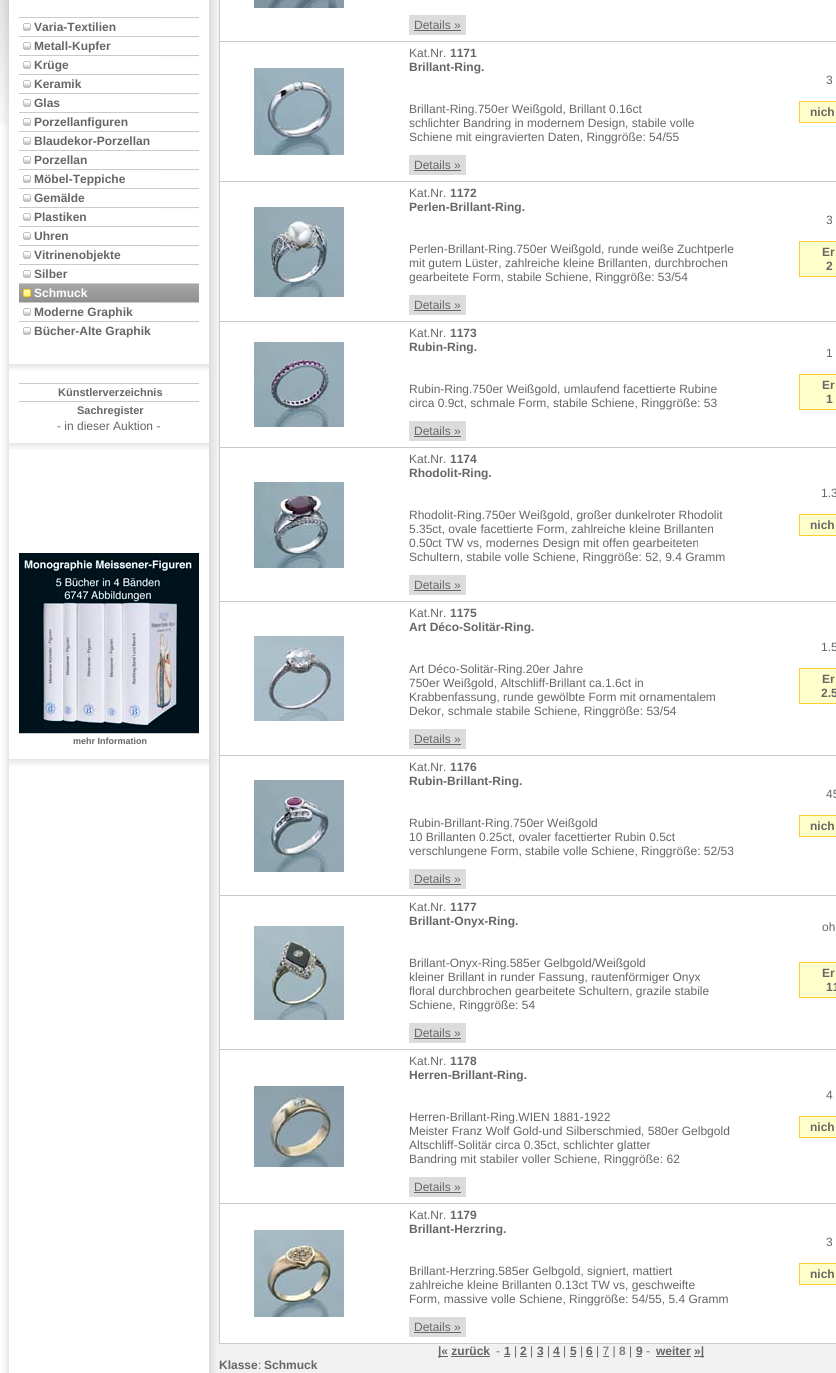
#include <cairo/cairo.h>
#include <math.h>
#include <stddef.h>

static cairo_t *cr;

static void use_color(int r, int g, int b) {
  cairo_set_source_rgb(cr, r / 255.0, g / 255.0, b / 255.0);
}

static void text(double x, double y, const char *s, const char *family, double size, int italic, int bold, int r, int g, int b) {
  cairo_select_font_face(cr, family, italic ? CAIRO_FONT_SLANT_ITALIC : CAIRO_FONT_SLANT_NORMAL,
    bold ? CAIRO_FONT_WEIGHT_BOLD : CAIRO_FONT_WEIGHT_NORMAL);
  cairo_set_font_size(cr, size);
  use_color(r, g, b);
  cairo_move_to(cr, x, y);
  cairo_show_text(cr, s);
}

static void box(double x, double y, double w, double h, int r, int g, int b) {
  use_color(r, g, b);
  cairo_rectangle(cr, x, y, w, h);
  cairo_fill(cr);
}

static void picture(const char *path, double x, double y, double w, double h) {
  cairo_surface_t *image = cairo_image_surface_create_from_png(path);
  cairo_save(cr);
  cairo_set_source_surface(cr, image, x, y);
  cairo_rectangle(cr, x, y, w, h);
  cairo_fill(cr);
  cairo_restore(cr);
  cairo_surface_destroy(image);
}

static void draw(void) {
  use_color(255, 255, 255);
  cairo_paint(cr);
  picture("img_01.png", 0, 0, 209, 1373);
  picture("img_02.png", 0, 0, 9, 124);
  picture("img_03.png", 9, 364, 200, 7);
  picture("img_04.png", 19, 17, 180, 14);
  picture("img_04.png", 19, 36, 180, 14);
  picture("img_04.png", 19, 55, 180, 14);
  picture("img_04.png", 19, 74, 180, 14);
  picture("img_04.png", 19, 93, 180, 14);
  picture("img_04.png", 19, 112, 180, 14);
  picture("img_04.png", 19, 131, 180, 14);
  picture("img_04.png", 19, 150, 180, 14);
  picture("img_04.png", 19, 169, 180, 14);
  picture("img_04.png", 19, 188, 180, 14);
  picture("img_04.png", 19, 207, 180, 14);
  picture("img_04.png", 19, 226, 180, 14);
  picture("img_04.png", 19, 245, 180, 14);
  picture("img_04.png", 19, 264, 180, 14);
  picture("img_05.png", 19, 283, 180, 19);
  picture("img_04.png", 19, 302, 180, 14);
  picture("img_04.png", 19, 321, 180, 14);
  picture("img_03.png", 9, 443, 200, 7);
  box(19, 383, 180, 1, 202, 202, 202);
  box(19, 401, 180, 1, 202, 202, 202);
  picture("img_03.png", 9, 759, 200, 7);
  picture("img_06.png", 19, 553, 180, 180);
  box(19, 733, 180, 1, 202, 202, 202);
  box(216, 0, 620, 1373, 241, 241, 241);
  picture("img_07.png", 209, 0, 7, 1373);
  cairo_rectangle(cr, 219.5, -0.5, 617, 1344);
  use_color(204, 204, 204);
  cairo_set_line_width(cr, 1);
  cairo_stroke(cr);
  box(220, 0, 616, 41, 255, 255, 255);
  picture("img_08.png", 254, 0, 90, 8);
  box(409, 15, 57, 20, 220, 220, 220);
  box(414, 30, 47, 1, 102, 102, 102);
  box(220, 42, 616, 139, 255, 255, 255);
  box(220, 41, 616, 1, 200, 200, 200);
  picture("img_09.png", 254, 68, 90, 87);
  box(409, 155, 57, 20, 220, 220, 220);
  box(414, 170, 47, 1, 102, 102, 102);
  use_color(255, 255, 204);
  cairo_rectangle(cr, 799.5, 101.5, 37, 21);
  cairo_fill_preserve(cr);
  use_color(255, 204, 51);
  cairo_stroke(cr);
  box(220, 182, 616, 139, 255, 255, 255);
  box(220, 181, 616, 1, 200, 200, 200);
  picture("img_10.png", 254, 207, 90, 90);
  box(409, 295, 57, 20, 220, 220, 220);
  box(414, 310, 47, 1, 102, 102, 102);
  use_color(255, 255, 204);
  cairo_rectangle(cr, 799.5, 241.5, 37, 35);
  cairo_fill_preserve(cr);
  use_color(255, 204, 51);
  cairo_stroke(cr);
  box(220, 322, 616, 125, 255, 255, 255);
  box(220, 321, 616, 1, 200, 200, 200);
  picture("img_11.png", 254, 342, 90, 85);
  box(409, 421, 57, 20, 220, 220, 220);
  box(414, 436, 47, 1, 102, 102, 102);
  use_color(255, 255, 204);
  cairo_rectangle(cr, 799.5, 374.5, 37, 35);
  cairo_fill_preserve(cr);
  use_color(255, 204, 51);
  cairo_stroke(cr);
  box(220, 448, 616, 153, 255, 255, 255);
  box(220, 447, 616, 1, 200, 200, 200);
  picture("img_12.png", 254, 482, 90, 86);
  box(409, 575, 57, 20, 220, 220, 220);
  box(414, 590, 47, 1, 102, 102, 102);
  use_color(255, 255, 204);
  cairo_rectangle(cr, 799.5, 514.5, 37, 21);
  cairo_fill_preserve(cr);
  use_color(255, 204, 51);
  cairo_stroke(cr);
  box(220, 602, 616, 153, 255, 255, 255);
  box(220, 601, 616, 1, 200, 200, 200);
  picture("img_13.png", 254, 636, 90, 85);
  box(409, 729, 57, 20, 220, 220, 220);
  box(414, 744, 47, 1, 102, 102, 102);
  use_color(255, 255, 204);
  cairo_rectangle(cr, 799.5, 668.5, 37, 35);
  cairo_fill_preserve(cr);
  use_color(255, 204, 51);
  cairo_stroke(cr);
  box(220, 756, 616, 139, 255, 255, 255);
  box(220, 755, 616, 1, 200, 200, 200);
  picture("img_14.png", 254, 780, 90, 92);
  box(409, 869, 57, 20, 220, 220, 220);
  box(414, 884, 47, 1, 102, 102, 102);
  use_color(255, 255, 204);
  cairo_rectangle(cr, 799.5, 815.5, 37, 21);
  cairo_fill_preserve(cr);
  use_color(255, 204, 51);
  cairo_stroke(cr);
  box(220, 896, 616, 153, 255, 255, 255);
  box(220, 895, 616, 1, 200, 200, 200);
  picture("img_15.png", 254, 926, 90, 94);
  box(409, 1023, 57, 20, 220, 220, 220);
  box(414, 1038, 47, 1, 102, 102, 102);
  use_color(255, 255, 204);
  cairo_rectangle(cr, 799.5, 962.5, 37, 35);
  cairo_fill_preserve(cr);
  use_color(255, 204, 51);
  cairo_stroke(cr);
  box(220, 1050, 616, 153, 255, 255, 255);
  box(220, 1049, 616, 1, 200, 200, 200);
  picture("img_16.png", 254, 1086, 90, 81);
  box(409, 1177, 57, 20, 220, 220, 220);
  box(414, 1192, 47, 1, 102, 102, 102);
  use_color(255, 255, 204);
  cairo_rectangle(cr, 799.5, 1116.5, 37, 21);
  cairo_fill_preserve(cr);
  use_color(255, 204, 51);
  cairo_stroke(cr);
  box(220, 1204, 616, 139, 255, 255, 255);
  box(220, 1203, 616, 1, 200, 200, 200);
  picture("img_17.png", 254, 1230, 90, 87);
  box(409, 1317, 57, 20, 220, 220, 220);
  box(414, 1332, 47, 1, 102, 102, 102);
  use_color(255, 255, 204);
  cairo_rectangle(cr, 799.5, 1263.5, 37, 21);
  cairo_fill_preserve(cr);
  use_color(255, 204, 51);
  cairo_stroke(cr);
  box(438, 1356, 10, 1, 102, 102, 102);
  box(504, 1356, 6, 1, 102, 102, 102);
  box(520, 1356, 7, 1, 102, 102, 102);
  box(537, 1356, 6, 1, 102, 102, 102);
  box(553, 1356, 7, 1, 102, 102, 102);
  box(570, 1356, 6, 1, 102, 102, 102);
  box(586, 1356, 7, 1, 102, 102, 102);
  box(636, 1356, 6, 1, 102, 102, 102);
  box(656, 1356, 35, 1, 102, 102, 102);
  box(694, 1356, 10, 1, 102, 102, 102);
  box(451, 1356, 39, 1, 102, 102, 102);
  box(603, 1356, 6, 1, 102, 102, 102);
  text(34, 31, "Varia-Textilien", "Liberation Sans", 12, 0, 1, 102, 102, 102);
  text(34, 50, "Metall-Kupfer", "Liberation Sans", 12, 0, 1, 102, 102, 102);
  text(34, 69, "Krüge", "Liberation Sans", 12, 0, 1, 102, 102, 102);
  text(34, 88, "Keramik", "Liberation Sans", 12, 0, 1, 102, 102, 102);
  text(34, 107, "Glas", "Liberation Sans", 12, 0, 1, 102, 102, 102);
  text(34, 126, "Porzellanfiguren", "Liberation Sans", 12, 0, 1, 102, 102, 102);
  text(34, 145, "Blaudekor-Porzellan", "Liberation Sans", 12, 0, 1, 102, 102, 102);
  text(34, 164, "Porzellan", "Liberation Sans", 12, 0, 1, 102, 102, 102);
  text(34, 183, "Möbel-Teppiche", "Liberation Sans", 12, 0, 1, 102, 102, 102);
  text(34, 202, "Gemälde", "Liberation Sans", 12, 0, 1, 102, 102, 102);
  text(34, 221, "Plastiken", "Liberation Sans", 12, 0, 1, 102, 102, 102);
  text(34, 240, "Uhren", "Liberation Sans", 12, 0, 1, 102, 102, 102);
  text(34, 259, "Vitrinenobjekte", "Liberation Sans", 12, 0, 1, 102, 102, 102);
  text(34, 278, "Silber", "Liberation Sans", 12, 0, 1, 102, 102, 102);
  text(34, 297, "Schmuck", "Liberation Sans", 12, 0, 1, 255, 255, 255);
  text(34, 316, "Moderne Graphik", "Liberation Sans", 12, 0, 1, 102, 102, 102);
  text(34, 335, "Bücher-Alte Graphik", "Liberation Sans", 12, 0, 1, 102, 102, 102);
  text(58, 396, "Künstlerverzeichnis", "Liberation Sans", 11, 0, 1, 102, 102, 102);
  text(77, 414, "Sachregister", "Liberation Sans", 11, 0, 1, 102, 102, 102);
  text(57, 430, "- in dieser Auktion -", "Liberation Sans", 12, 0, 0, 102, 102, 102);
  text(73, 744, "mehr Information", "Liberation Sans", 9, 0, 1, 102, 102, 102);
  text(414, 29, "Details »", "Liberation Sans", 12, 0, 0, 102, 102, 102);
  text(409, 57, "Kat.Nr.", "Liberation Sans", 12, 0, 0, 102, 102, 102);
  text(450, 57, "1171", "Liberation Sans", 12, 0, 1, 102, 102, 102);
  text(409, 71, "Brillant-Ring.", "Liberation Sans", 12, 0, 1, 102, 102, 102);
  text(409, 113, "Brillant-Ring.750er Weißgold, Brillant 0.16ct", "Liberation Sans", 12, 0, 0, 102, 102, 102);
  text(409, 127, "schlichter Bandring in modernem Design, stabile volle", "Liberation Sans", 12, 0, 0, 102, 102, 102);
  text(409, 141, "Schiene mit eingravierten Daten, Ringgröße: 54/55", "Liberation Sans", 12, 0, 0, 102, 102, 102);
  text(414, 169, "Details »", "Liberation Sans", 12, 0, 0, 102, 102, 102);
  text(826, 84, "3", "Liberation Sans", 12, 0, 0, 102, 102, 102);
  text(810, 116, "nich", "Liberation Sans", 12, 0, 1, 102, 102, 102);
  text(409, 197, "Kat.Nr.", "Liberation Sans", 12, 0, 0, 102, 102, 102);
  text(450, 197, "1172", "Liberation Sans", 12, 0, 1, 102, 102, 102);
  text(409, 211, "Perlen-Brillant-Ring.", "Liberation Sans", 12, 0, 1, 102, 102, 102);
  text(409, 253, "Perlen-Brillant-Ring.750er Weißgold, runde weiße Zuchtperle", "Liberation Sans", 12, 0, 0, 102, 102, 102);
  text(409, 267, "mit gutem Lüster, zahlreiche kleine Brillanten, durchbrochen", "Liberation Sans", 12, 0, 0, 102, 102, 102);
  text(409, 281, "gearbeitete Form, stabile Schiene, Ringgröße: 53/54", "Liberation Sans", 12, 0, 0, 102, 102, 102);
  text(414, 309, "Details »", "Liberation Sans", 12, 0, 0, 102, 102, 102);
  text(826, 224, "3", "Liberation Sans", 12, 0, 0, 102, 102, 102);
  text(822, 256, "Er", "Liberation Sans", 12, 0, 1, 102, 102, 102);
  text(826, 270, "2", "Liberation Sans", 12, 0, 1, 102, 102, 102);
  text(409, 337, "Kat.Nr.", "Liberation Sans", 12, 0, 0, 102, 102, 102);
  text(450, 337, "1173", "Liberation Sans", 12, 0, 1, 102, 102, 102);
  text(409, 351, "Rubin-Ring.", "Liberation Sans", 12, 0, 1, 102, 102, 102);
  text(409, 393, "Rubin-Ring.750er Weißgold, umlaufend facettierte Rubine", "Liberation Sans", 12, 0, 0, 102, 102, 102);
  text(409, 407, "circa 0.9ct, schmale Form, stabile Schiene, Ringgröße: 53", "Liberation Sans", 12, 0, 0, 102, 102, 102);
  text(414, 435, "Details »", "Liberation Sans", 12, 0, 0, 102, 102, 102);
  text(826, 357, "1", "Liberation Sans", 12, 0, 0, 102, 102, 102);
  text(822, 389, "Er", "Liberation Sans", 12, 0, 1, 102, 102, 102);
  text(826, 403, "1", "Liberation Sans", 12, 0, 1, 102, 102, 102);
  text(409, 463, "Kat.Nr.", "Liberation Sans", 12, 0, 0, 102, 102, 102);
  text(450, 463, "1174", "Liberation Sans", 12, 0, 1, 102, 102, 102);
  text(409, 477, "Rhodolit-Ring.", "Liberation Sans", 12, 0, 1, 102, 102, 102);
  text(409, 519, "Rhodolit-Ring.750er Weißgold, großer dunkelroter Rhodolit", "Liberation Sans", 12, 0, 0, 102, 102, 102);
  text(409, 533, "5.35ct, ovale facettierte Form, zahlreiche kleine Brillanten", "Liberation Sans", 12, 0, 0, 102, 102, 102);
  text(409, 547, "0.50ct TW vs, modernes Design mit offen gearbeiteten", "Liberation Sans", 12, 0, 0, 102, 102, 102);
  text(409, 561, "Schultern, stabile volle Schiene, Ringgröße: 52, 9.4 Gramm", "Liberation Sans", 12, 0, 0, 102, 102, 102);
  text(414, 589, "Details »", "Liberation Sans", 12, 0, 0, 102, 102, 102);
  text(821, 497, "1.3", "Liberation Sans", 12, 0, 0, 102, 102, 102);
  text(810, 529, "nich", "Liberation Sans", 12, 0, 1, 102, 102, 102);
  text(409, 617, "Kat.Nr.", "Liberation Sans", 12, 0, 0, 102, 102, 102);
  text(450, 617, "1175", "Liberation Sans", 12, 0, 1, 102, 102, 102);
  text(409, 631, "Art Déco-Solitär-Ring.", "Liberation Sans", 12, 0, 1, 102, 102, 102);
  text(409, 673, "Art Déco-Solitär-Ring.20er Jahre", "Liberation Sans", 12, 0, 0, 102, 102, 102);
  text(409, 687, "750er Weißgold, Altschliff-Brillant ca.1.6ct in", "Liberation Sans", 12, 0, 0, 102, 102, 102);
  text(409, 701, "Krabbenfassung, runde gewölbte Form mit ornamentalem", "Liberation Sans", 12, 0, 0, 102, 102, 102);
  text(409, 715, "Dekor, schmale stabile Schiene, Ringgröße: 53/54", "Liberation Sans", 12, 0, 0, 102, 102, 102);
  text(414, 743, "Details »", "Liberation Sans", 12, 0, 0, 102, 102, 102);
  text(821, 651, "1.5", "Liberation Sans", 12, 0, 0, 102, 102, 102);
  text(822, 683, "Er", "Liberation Sans", 12, 0, 1, 102, 102, 102);
  text(821, 697, "2.5", "Liberation Sans", 12, 0, 1, 102, 102, 102);
  text(409, 771, "Kat.Nr.", "Liberation Sans", 12, 0, 0, 102, 102, 102);
  text(450, 771, "1176", "Liberation Sans", 12, 0, 1, 102, 102, 102);
  text(409, 785, "Rubin-Brillant-Ring.", "Liberation Sans", 12, 0, 1, 102, 102, 102);
  text(409, 827, "Rubin-Brillant-Ring.750er Weißgold", "Liberation Sans", 12, 0, 0, 102, 102, 102);
  text(409, 841, "10 Brillanten 0.25ct, ovaler facettierter Rubin 0.5ct", "Liberation Sans", 12, 0, 0, 102, 102, 102);
  text(409, 855, "verschlungene Form, stabile volle Schiene, Ringgröße: 52/53", "Liberation Sans", 12, 0, 0, 102, 102, 102);
  text(414, 883, "Details »", "Liberation Sans", 12, 0, 0, 102, 102, 102);
  text(826, 798, "45", "Liberation Sans", 12, 0, 0, 102, 102, 102);
  text(810, 830, "nich", "Liberation Sans", 12, 0, 1, 102, 102, 102);
  text(409, 911, "Kat.Nr.", "Liberation Sans", 12, 0, 0, 102, 102, 102);
  text(450, 911, "1177", "Liberation Sans", 12, 0, 1, 102, 102, 102);
  text(409, 925, "Brillant-Onyx-Ring.", "Liberation Sans", 12, 0, 1, 102, 102, 102);
  text(409, 967, "Brillant-Onyx-Ring.585er Gelbgold/Weißgold", "Liberation Sans", 12, 0, 0, 102, 102, 102);
  text(409, 981, "kleiner Brillant in runder Fassung, rautenförmiger Onyx", "Liberation Sans", 12, 0, 0, 102, 102, 102);
  text(409, 995, "floral durchbrochen gearbeitete Schultern, grazile stabile", "Liberation Sans", 12, 0, 0, 102, 102, 102);
  text(409, 1009, "Schiene, Ringgröße: 54", "Liberation Sans", 12, 0, 0, 102, 102, 102);
  text(414, 1037, "Details »", "Liberation Sans", 12, 0, 0, 102, 102, 102);
  text(822, 931, "oh", "Liberation Sans", 12, 0, 0, 102, 102, 102);
  text(822, 977, "Er", "Liberation Sans", 12, 0, 1, 102, 102, 102);
  text(826, 991, "11", "Liberation Sans", 12, 0, 1, 102, 102, 102);
  text(409, 1065, "Kat.Nr.", "Liberation Sans", 12, 0, 0, 102, 102, 102);
  text(450, 1065, "1178", "Liberation Sans", 12, 0, 1, 102, 102, 102);
  text(409, 1079, "Herren-Brillant-Ring.", "Liberation Sans", 12, 0, 1, 102, 102, 102);
  text(409, 1121, "Herren-Brillant-Ring.WIEN 1881-1922", "Liberation Sans", 12, 0, 0, 102, 102, 102);
  text(409, 1135, "Meister Franz Wolf Gold-und Silberschmied, 580er Gelbgold", "Liberation Sans", 12, 0, 0, 102, 102, 102);
  text(409, 1149, "Altschliff-Solitär circa 0.35ct, schlichter glatter", "Liberation Sans", 12, 0, 0, 102, 102, 102);
  text(409, 1163, "Bandring mit stabiler voller Schiene, Ringgröße: 62", "Liberation Sans", 12, 0, 0, 102, 102, 102);
  text(414, 1191, "Details »", "Liberation Sans", 12, 0, 0, 102, 102, 102);
  text(826, 1099, "4", "Liberation Sans", 12, 0, 0, 102, 102, 102);
  text(810, 1131, "nich", "Liberation Sans", 12, 0, 1, 102, 102, 102);
  text(409, 1219, "Kat.Nr.", "Liberation Sans", 12, 0, 0, 102, 102, 102);
  text(450, 1219, "1179", "Liberation Sans", 12, 0, 1, 102, 102, 102);
  text(409, 1233, "Brillant-Herzring.", "Liberation Sans", 12, 0, 1, 102, 102, 102);
  text(409, 1275, "Brillant-Herzring.585er Gelbgold, signiert, mattiert", "Liberation Sans", 12, 0, 0, 102, 102, 102);
  text(409, 1289, "zahlreiche kleine Brillanten 0.13ct TW vs, geschweifte", "Liberation Sans", 12, 0, 0, 102, 102, 102);
  text(409, 1303, "Form, massive volle Schiene, Ringgröße: 54/55, 5.4 Gramm", "Liberation Sans", 12, 0, 0, 102, 102, 102);
  text(414, 1331, "Details »", "Liberation Sans", 12, 0, 0, 102, 102, 102);
  text(826, 1246, "3", "Liberation Sans", 12, 0, 0, 102, 102, 102);
  text(810, 1278, "nich", "Liberation Sans", 12, 0, 1, 102, 102, 102);
  text(438, 1355, "|« zurück", "Liberation Sans", 12, 0, 1, 102, 102, 102);
  text(496, 1355, "-", "Liberation Sans", 12, 0, 0, 102, 102, 102);
  text(504, 1355, "1", "Liberation Sans", 12, 0, 1, 102, 102, 102);
  text(514, 1355, "|", "Liberation Sans", 12, 0, 0, 102, 102, 102);
  text(520, 1355, "2", "Liberation Sans", 12, 0, 1, 102, 102, 102);
  text(530, 1355, "|", "Liberation Sans", 12, 0, 0, 102, 102, 102);
  text(537, 1355, "3", "Liberation Sans", 12, 0, 1, 102, 102, 102);
  text(547, 1355, "|", "Liberation Sans", 12, 0, 0, 102, 102, 102);
  text(553, 1355, "4", "Liberation Sans", 12, 0, 1, 102, 102, 102);
  text(563, 1355, "|", "Liberation Sans", 12, 0, 0, 102, 102, 102);
  text(570, 1355, "5", "Liberation Sans", 12, 0, 1, 102, 102, 102);
  text(580, 1355, "|", "Liberation Sans", 12, 0, 0, 102, 102, 102);
  text(586, 1355, "6", "Liberation Sans", 12, 0, 1, 102, 102, 102);
  text(596, 1355, "| 7 |", "Liberation Sans", 12, 0, 0, 102, 102, 102);
  text(619, 1355, "8", "Liberation Sans", 12, 0, 1, 128, 128, 128);
  text(629, 1355, "|", "Liberation Sans", 12, 0, 0, 102, 102, 102);
  text(636, 1355, "9", "Liberation Sans", 12, 0, 1, 102, 102, 102);
  text(646, 1355, "-", "Liberation Sans", 12, 0, 0, 102, 102, 102);
  text(656, 1355, "weiter", "Liberation Sans", 12, 0, 1, 102, 102, 102);
  text(694, 1355, "»|", "Liberation Sans", 12, 0, 1, 102, 102, 102);
  text(219, 1369, "Klasse", "Liberation Sans", 12, 0, 1, 102, 102, 102);
  text(258, 1369, ":", "Liberation Sans", 12, 0, 0, 102, 102, 102);
  text(264, 1369, "Schmuck", "Liberation Sans", 12, 0, 1, 102, 102, 102);
}

int main(void) {
  cairo_surface_t *surface = cairo_image_surface_create(CAIRO_FORMAT_RGB24, 836, 1373);
  cr = cairo_create(surface);
  cairo_font_options_t *options = cairo_font_options_create();
  cairo_font_options_set_hint_metrics(options, CAIRO_HINT_METRICS_OFF);
  cairo_font_options_set_hint_style(options, CAIRO_HINT_STYLE_NONE);
  cairo_set_font_options(cr, options);
  cairo_set_miter_limit(cr, 4);
  draw();
  cairo_surface_write_to_png(surface, "out.png");
  cairo_font_options_destroy(options);
  cairo_destroy(cr);
  cairo_surface_destroy(surface);
  return 0;
}
